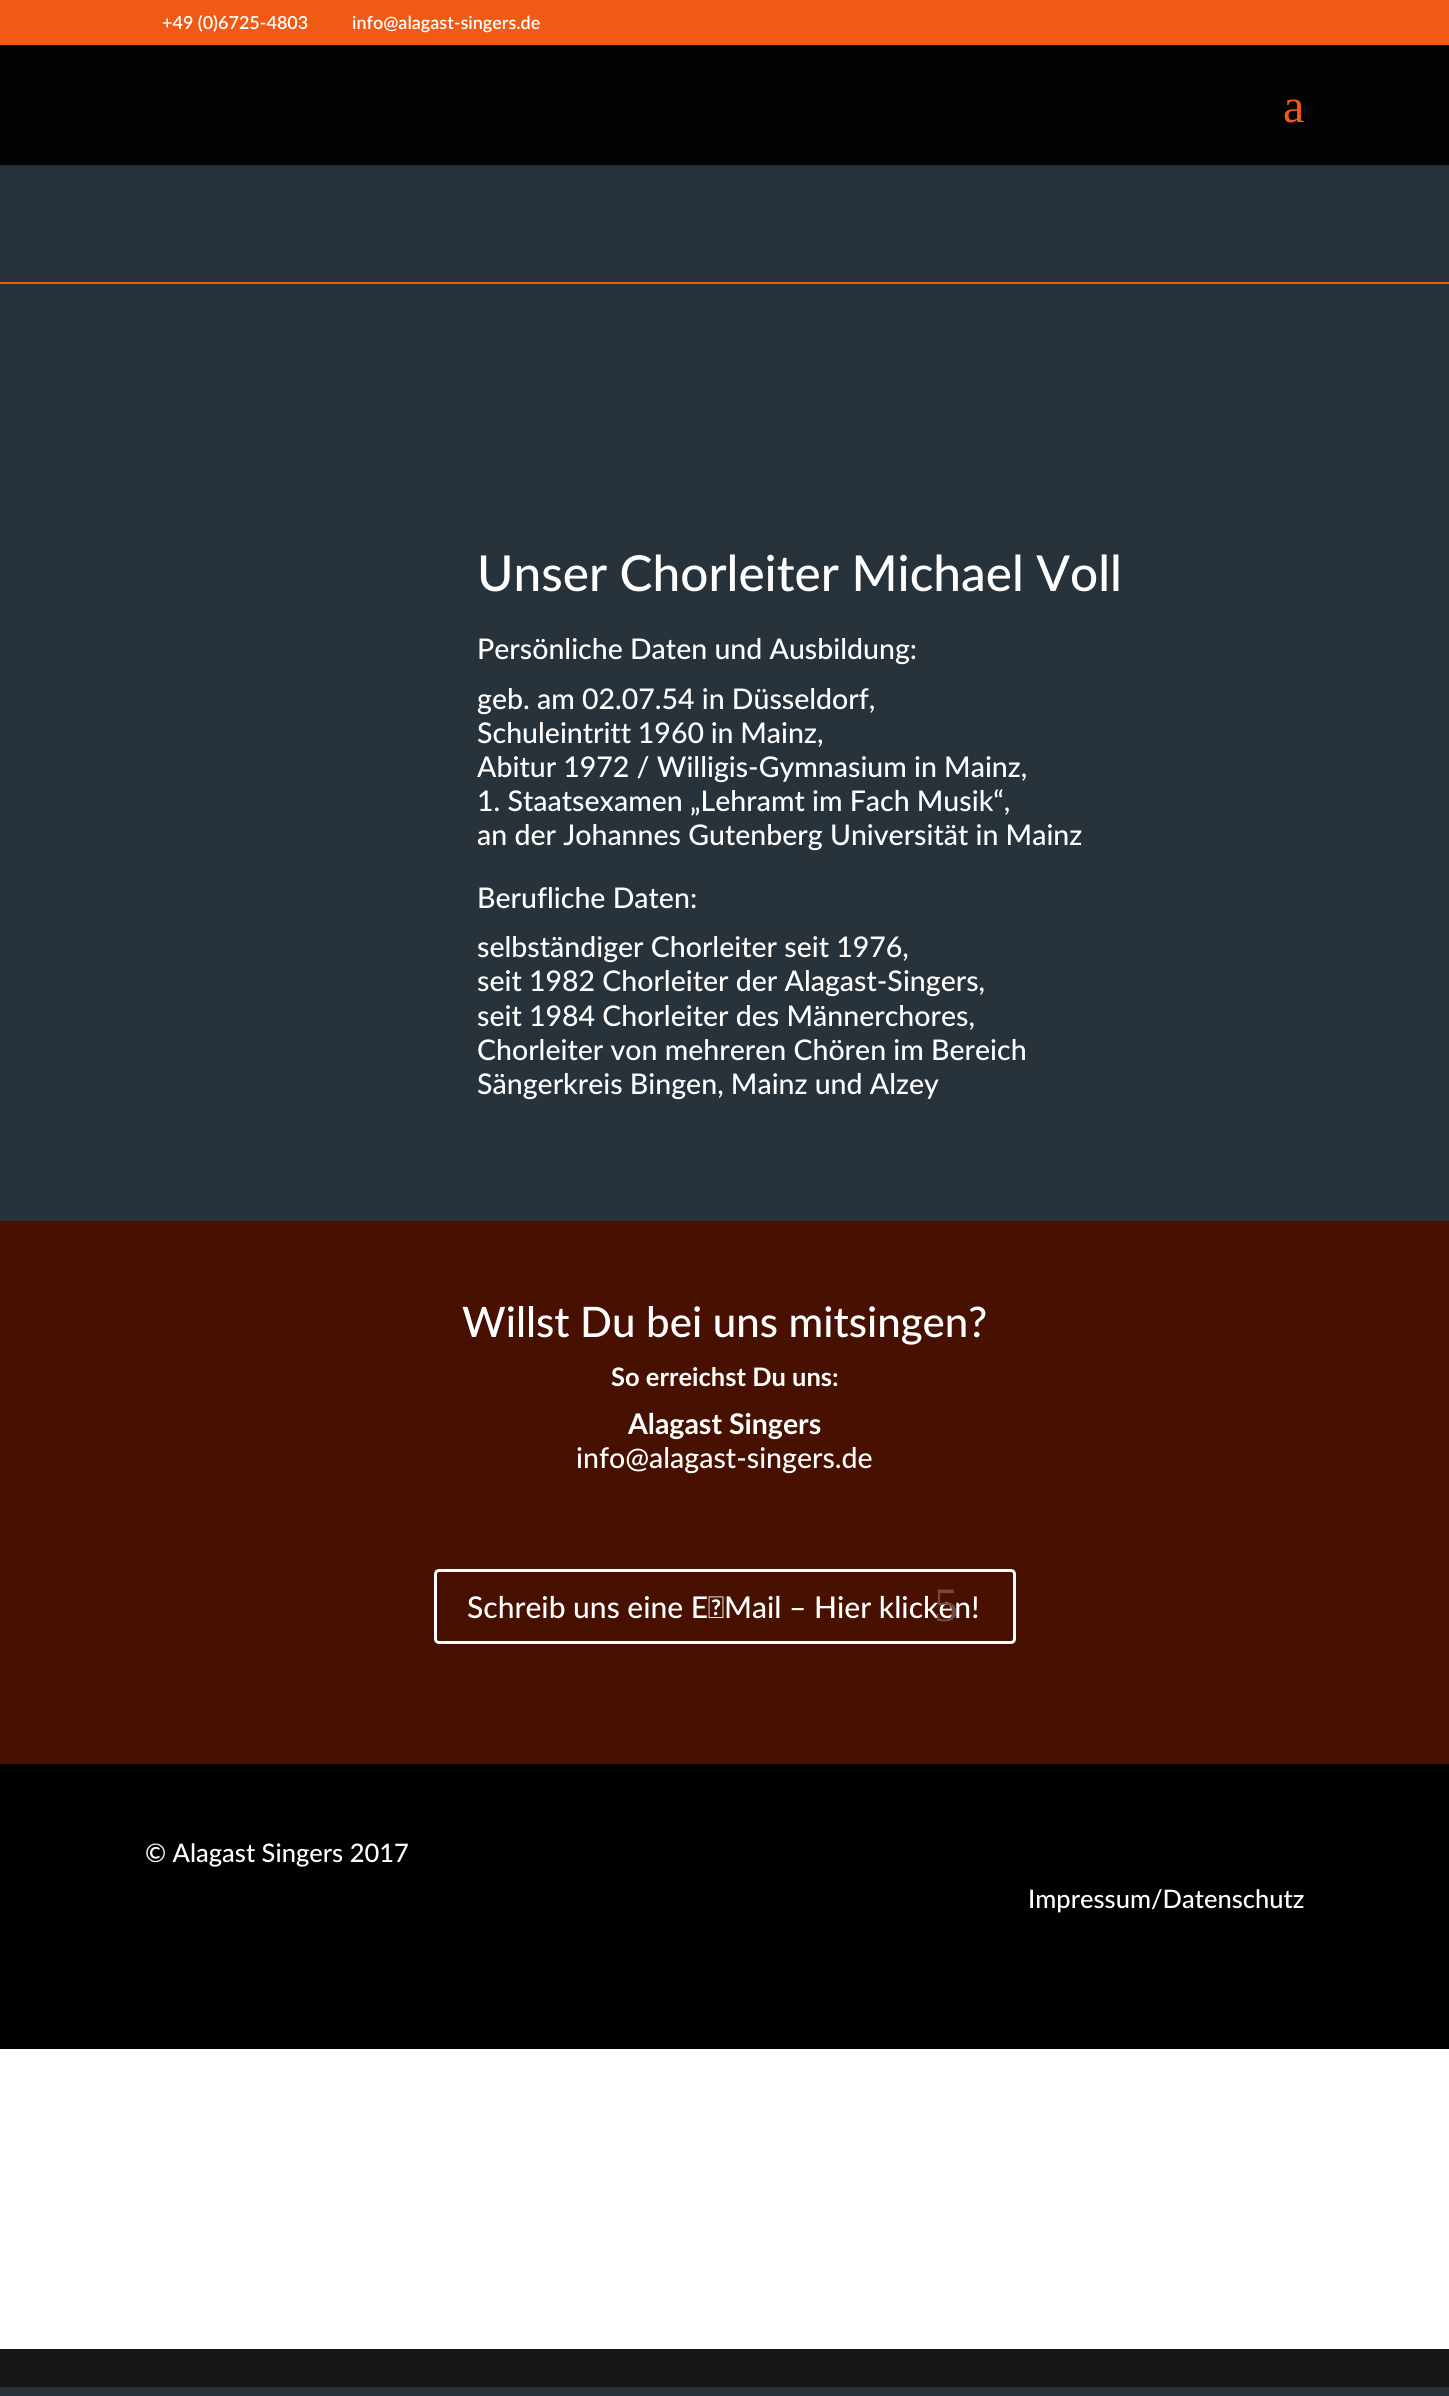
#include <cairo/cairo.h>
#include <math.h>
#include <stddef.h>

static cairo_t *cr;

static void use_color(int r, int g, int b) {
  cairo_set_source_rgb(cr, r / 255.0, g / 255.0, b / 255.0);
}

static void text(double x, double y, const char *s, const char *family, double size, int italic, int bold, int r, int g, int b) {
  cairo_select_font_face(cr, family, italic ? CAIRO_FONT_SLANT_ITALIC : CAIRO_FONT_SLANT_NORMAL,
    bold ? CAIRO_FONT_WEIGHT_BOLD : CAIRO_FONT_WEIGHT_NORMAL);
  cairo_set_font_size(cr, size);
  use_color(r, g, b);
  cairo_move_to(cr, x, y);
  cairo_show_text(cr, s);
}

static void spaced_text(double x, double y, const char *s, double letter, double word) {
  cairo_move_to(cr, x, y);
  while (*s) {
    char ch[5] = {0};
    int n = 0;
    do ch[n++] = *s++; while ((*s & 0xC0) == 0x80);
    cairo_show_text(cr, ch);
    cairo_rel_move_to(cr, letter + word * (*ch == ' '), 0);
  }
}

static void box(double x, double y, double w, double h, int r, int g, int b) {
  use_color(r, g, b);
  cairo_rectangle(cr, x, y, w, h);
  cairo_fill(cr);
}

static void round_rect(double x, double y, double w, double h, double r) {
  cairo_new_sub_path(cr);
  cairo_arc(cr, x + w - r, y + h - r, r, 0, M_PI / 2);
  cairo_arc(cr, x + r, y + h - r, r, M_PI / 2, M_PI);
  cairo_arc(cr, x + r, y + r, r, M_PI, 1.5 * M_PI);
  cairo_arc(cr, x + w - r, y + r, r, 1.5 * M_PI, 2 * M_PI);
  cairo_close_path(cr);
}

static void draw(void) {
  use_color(39, 50, 58);
  cairo_paint(cr);
  box(0, 0, 1449, 45, 240, 90, 20);
  box(0, 165, 1449, 2, 35, 45, 52);
  box(0, 45, 1449, 120, 2, 2, 2);
  box(0, 282, 1449, 2, 240, 90, 20);
  box(0, 1221, 1449, 543, 71, 16, 0);
  round_rect(435.5, 1570.5, 579, 72, 3.5);
  use_color(255, 255, 255);
  cairo_set_line_width(cr, 3);
  cairo_stroke(cr);
  box(0, 1764, 1449, 285, 0, 0, 0);
  box(0, 2049, 1449, 300, 255, 255, 255);
  box(0, 2349, 1449, 38, 23, 23, 23);
  text(162, 29, "+49 (0)6725-4803", "Lato SemiBold", 18, 0, 0, 255, 255, 255);
  text(352, 29, "info@alagast-singers.de", "Lato SemiBold", 18, 0, 0, 255, 255, 255);
  text(1283, 122, "a", "Liberation Serif", 48, 0, 0, 240, 90, 20);
  text(477, 591, "Unser Chorleiter Michael Voll", "Lato Medium", 49.5, 0, 0, 255, 255, 255);
  text(477, 659, "Persönliche Daten und Ausbildung:", "Lato Medium", 28.5, 0, 0, 255, 255, 255);
  text(477, 709, "geb. am 02.07.54 in Düsseldorf,", "Lato Medium", 28.5, 0, 0, 255, 255, 255);
  spaced_text(477, 743, "Schuleintritt 1960 in Mainz,", 0, -0.5);
  text(477, 777, "Abitur 1972 / Willigis-Gymnasium in Mainz,", "Lato Medium", 28.5, 0, 0, 255, 255, 255);
  text(477, 811, "1. Staatsexamen „Lehramt im Fach Musik“,", "Lato Medium", 28.5, 0, 0, 255, 255, 255);
  text(477, 845, "an der Johannes Gutenberg Universität in Mainz", "Lato Medium", 28.5, 0, 0, 255, 255, 255);
  text(477, 908, "Berufliche Daten:", "Lato Medium", 28.5, 0, 0, 255, 255, 255);
  text(477, 957, "selbständiger Chorleiter seit 1976,", "Lato Medium", 28.5, 0, 0, 255, 255, 255);
  text(477, 991, "seit 1982 Chorleiter der Alagast-Singers,", "Lato Medium", 28.5, 0, 0, 255, 255, 255);
  text(477, 1026, "seit 1984 Chorleiter des Männerchores,", "Lato Medium", 28.5, 0, 0, 255, 255, 255);
  text(477, 1060, "Chorleiter von mehreren Chören im Bereich", "Lato Medium", 28.5, 0, 0, 255, 255, 255);
  text(477, 1094, "Sängerkreis Bingen, Mainz und Alzey", "Lato Medium", 28.5, 0, 0, 255, 255, 255);
  text(462, 1337, "Willst Du bei uns mitsingen?", "Lato Medium", 42, 0, 0, 255, 255, 255);
  text(611, 1386, "So erreichst Du uns:", "Lato", 25.5, 0, 1, 255, 255, 255);
  text(628, 1434, "Alagast Singers", "Lato", 28.5, 0, 1, 255, 255, 255);
  text(576, 1468, "info@alagast-singers.de", "Lato Medium", 28.5, 0, 0, 255, 255, 255);
  text(467, 1618, "Schreib uns eine E‑Mail – Hier klicken!", "Lato Medium", 30, 0, 0, 255, 255, 255);
  text(934, 1621, "5", "Liberation Serif", 48, 0, 0, 116, 75, 63);
  text(145, 1862, "© Alagast Singers 2017", "Lato Medium", 25.5, 0, 0, 255, 255, 255);
  text(1028, 1908, "Impressum/Datenschutz", "Lato Medium", 25.5, 0, 0, 255, 255, 255);
}

int main(void) {
  cairo_surface_t *surface = cairo_image_surface_create(CAIRO_FORMAT_RGB24, 1449, 2396);
  cr = cairo_create(surface);
  cairo_font_options_t *options = cairo_font_options_create();
  cairo_font_options_set_hint_metrics(options, CAIRO_HINT_METRICS_OFF);
  cairo_font_options_set_hint_style(options, CAIRO_HINT_STYLE_NONE);
  cairo_set_font_options(cr, options);
  cairo_set_miter_limit(cr, 4);
  draw();
  cairo_surface_write_to_png(surface, "out.png");
  cairo_font_options_destroy(options);
  cairo_destroy(cr);
  cairo_surface_destroy(surface);
  return 0;
}
